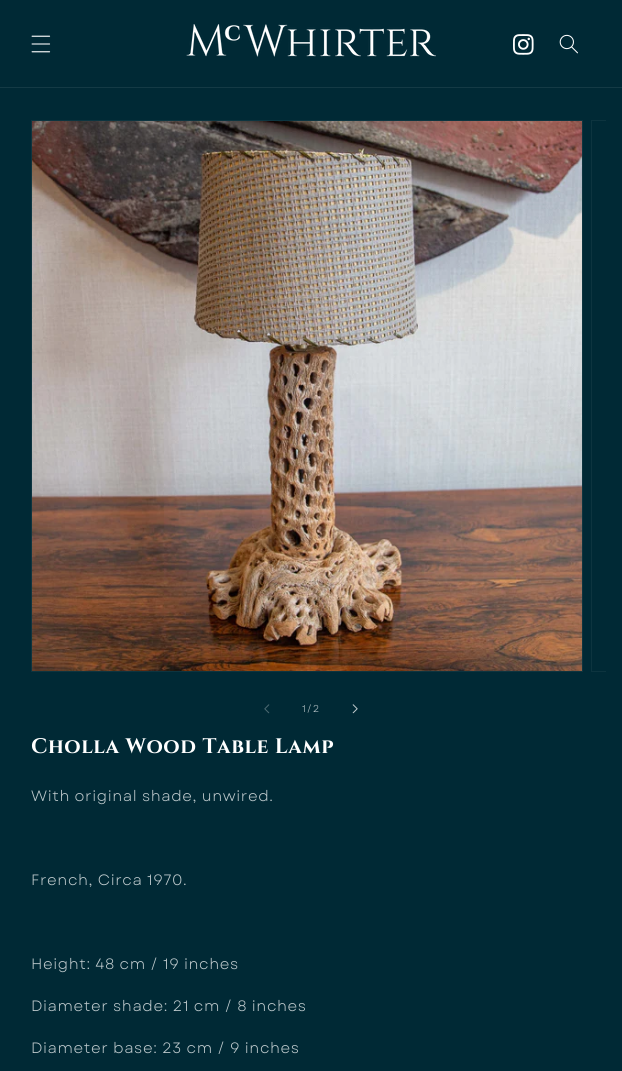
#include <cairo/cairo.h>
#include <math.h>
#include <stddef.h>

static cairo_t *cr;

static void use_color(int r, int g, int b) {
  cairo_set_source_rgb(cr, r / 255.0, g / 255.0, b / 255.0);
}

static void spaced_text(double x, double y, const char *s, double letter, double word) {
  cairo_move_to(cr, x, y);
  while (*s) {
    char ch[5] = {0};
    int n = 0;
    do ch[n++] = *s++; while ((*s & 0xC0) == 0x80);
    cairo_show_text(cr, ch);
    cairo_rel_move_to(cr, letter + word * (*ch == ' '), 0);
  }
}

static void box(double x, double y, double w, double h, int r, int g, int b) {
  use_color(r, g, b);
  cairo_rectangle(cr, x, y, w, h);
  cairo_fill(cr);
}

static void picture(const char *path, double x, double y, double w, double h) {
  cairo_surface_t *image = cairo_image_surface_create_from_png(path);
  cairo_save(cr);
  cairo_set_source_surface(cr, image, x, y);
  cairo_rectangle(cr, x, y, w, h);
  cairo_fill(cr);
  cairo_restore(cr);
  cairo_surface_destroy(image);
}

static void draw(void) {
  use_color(0, 41, 53);
  cairo_paint(cr);
  box(0, 87, 622, 1, 20, 58, 69);
  picture("img_01.png", 31, 35, 20, 18);
  picture("img_02.png", 186, 24, 250, 33);
  picture("img_03.png", 513, 34, 21, 21);
  picture("img_04.png", 559, 34, 19, 20);
  cairo_rectangle(cr, 31.5, 120.5, 551, 551);
  use_color(13, 52, 63);
  cairo_set_line_width(cr, 1);
  cairo_stroke(cr);
  picture("img_05.png", 32, 121, 550, 550);
  cairo_save(cr);
  cairo_rectangle(cr, 16, 115, 590, 562);
  cairo_clip(cr);
  cairo_rectangle(cr, 591.5, 120.5, 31, 551);
  cairo_stroke(cr);
  cairo_restore(cr);
  picture("img_06.png", 264, 704, 6, 10);
  picture("img_07.png", 352, 704, 6, 10);
  cairo_select_font_face(cr, "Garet", CAIRO_FONT_SLANT_NORMAL, CAIRO_FONT_WEIGHT_NORMAL);
  cairo_set_font_size(cr, 10);
  use_color(191, 202, 205);
  spaced_text(302, 712, "1/2", 1, 0);
  cairo_select_font_face(cr, "Cinzel", CAIRO_FONT_SLANT_NORMAL, CAIRO_FONT_WEIGHT_BOLD);
  cairo_set_font_size(cr, 21);
  use_color(255, 255, 255);
  spaced_text(31, 753, "Cholla Wood Table Lamp", 0.6, 0);
  cairo_select_font_face(cr, "Garet", CAIRO_FONT_SLANT_NORMAL, CAIRO_FONT_WEIGHT_NORMAL);
  cairo_set_font_size(cr, 15);
  use_color(191, 202, 205);
  spaced_text(31, 801, "With original shade, unwired.", 0.6, 0);
  spaced_text(31, 885, "French, Circa 1970.", 0.6, 0);
  spaced_text(31, 969, "Height: 48 cm / 19 inches", 0.6, 0);
  spaced_text(31, 1011, "Diameter shade: 21 cm / 8 inches", 0.6, 0);
  spaced_text(31, 1053, "Diameter base: 23 cm / 9 inches", 0.6, 0);
}

int main(void) {
  cairo_surface_t *surface = cairo_image_surface_create(CAIRO_FORMAT_RGB24, 622, 1071);
  cr = cairo_create(surface);
  cairo_font_options_t *options = cairo_font_options_create();
  cairo_font_options_set_hint_metrics(options, CAIRO_HINT_METRICS_OFF);
  cairo_font_options_set_hint_style(options, CAIRO_HINT_STYLE_NONE);
  cairo_set_font_options(cr, options);
  cairo_set_miter_limit(cr, 4);
  draw();
  cairo_surface_write_to_png(surface, "out.png");
  cairo_font_options_destroy(options);
  cairo_destroy(cr);
  cairo_surface_destroy(surface);
  return 0;
}
